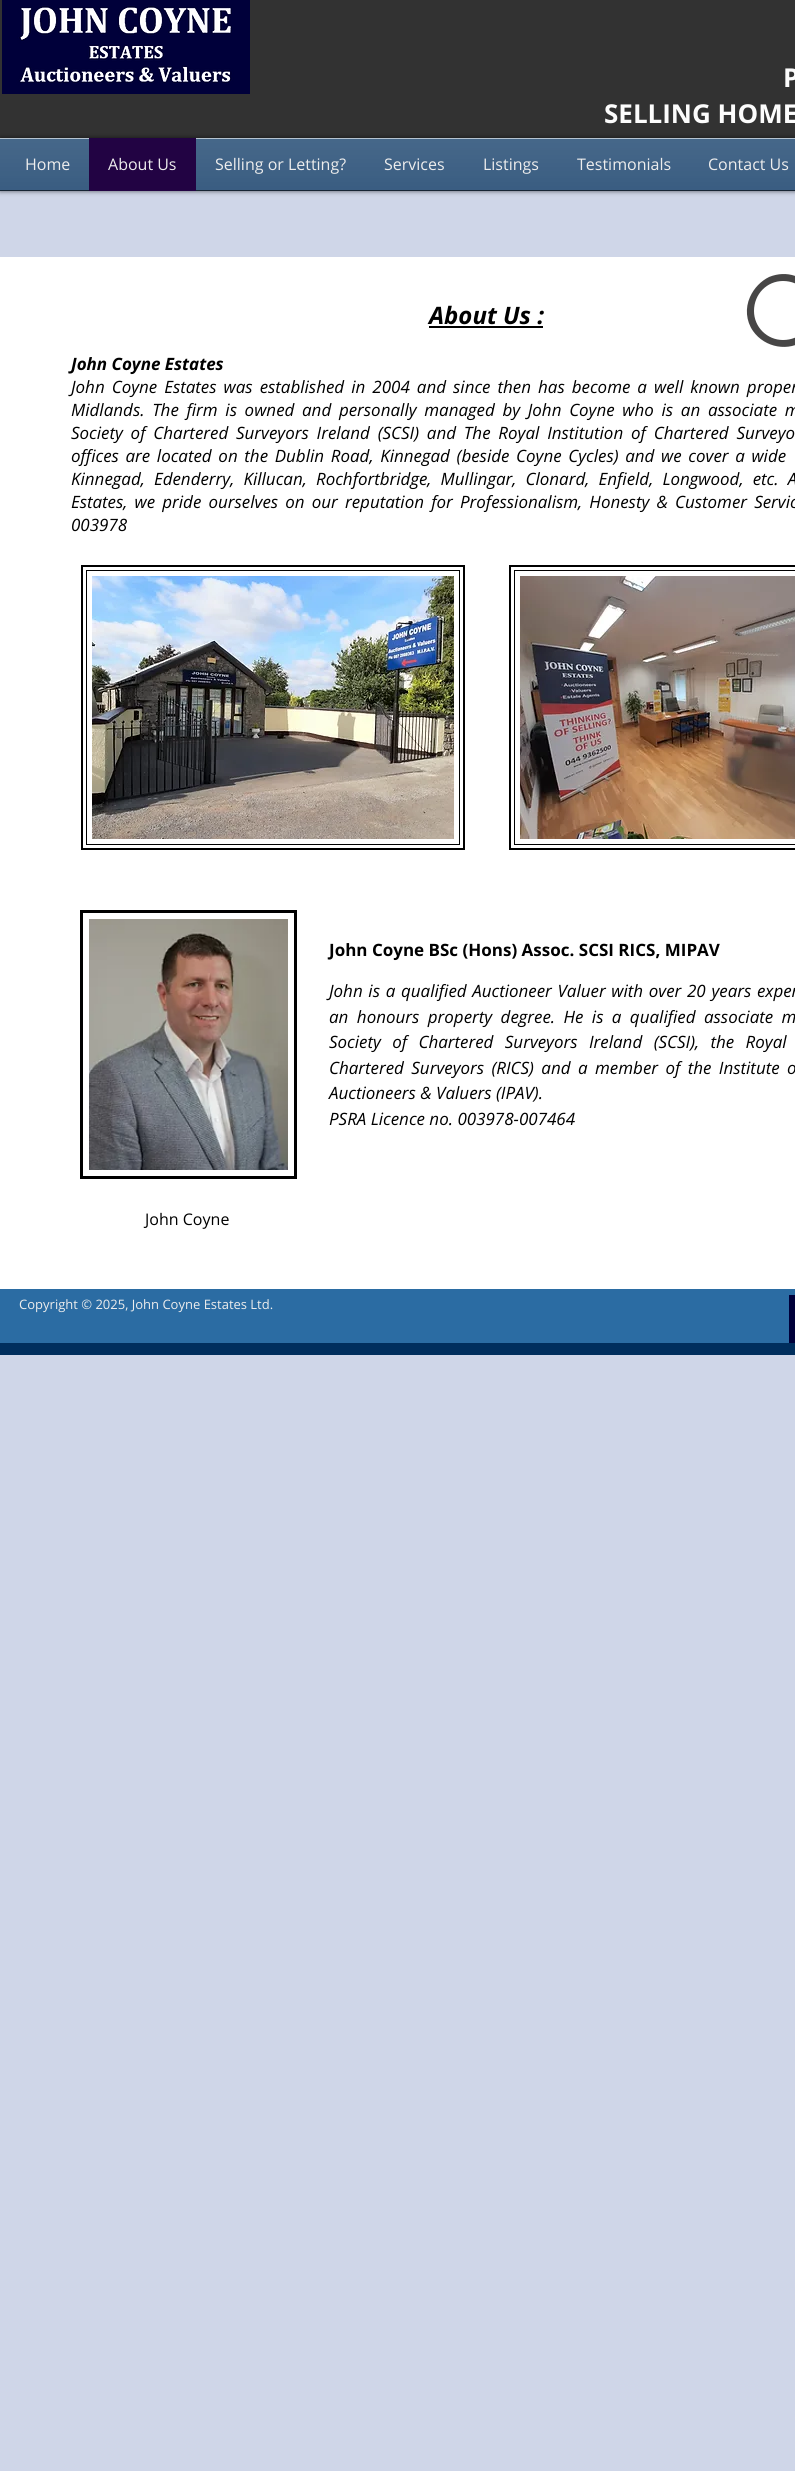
#include <cairo/cairo.h>
#include <math.h>
#include <stddef.h>

static cairo_t *cr;

static void use_color(int r, int g, int b) {
  cairo_set_source_rgb(cr, r / 255.0, g / 255.0, b / 255.0);
}

static void text(double x, double y, const char *s, const char *family, double size, int italic, int bold, int r, int g, int b) {
  cairo_select_font_face(cr, family, italic ? CAIRO_FONT_SLANT_ITALIC : CAIRO_FONT_SLANT_NORMAL,
    bold ? CAIRO_FONT_WEIGHT_BOLD : CAIRO_FONT_WEIGHT_NORMAL);
  cairo_set_font_size(cr, size);
  use_color(r, g, b);
  cairo_move_to(cr, x, y);
  cairo_show_text(cr, s);
}

static void spaced_text(double x, double y, const char *s, double letter, double word) {
  cairo_move_to(cr, x, y);
  while (*s) {
    char ch[5] = {0};
    int n = 0;
    do ch[n++] = *s++; while ((*s & 0xC0) == 0x80);
    cairo_show_text(cr, ch);
    cairo_rel_move_to(cr, letter + word * (*ch == ' '), 0);
  }
}

static void box(double x, double y, double w, double h, int r, int g, int b) {
  use_color(r, g, b);
  cairo_rectangle(cr, x, y, w, h);
  cairo_fill(cr);
}

static void round_rect(double x, double y, double w, double h, double r) {
  cairo_new_sub_path(cr);
  cairo_arc(cr, x + w - r, y + h - r, r, 0, M_PI / 2);
  cairo_arc(cr, x + r, y + h - r, r, M_PI / 2, M_PI);
  cairo_arc(cr, x + r, y + r, r, M_PI, 1.5 * M_PI);
  cairo_arc(cr, x + w - r, y + r, r, 1.5 * M_PI, 2 * M_PI);
  cairo_close_path(cr);
}

static void shadow(double x, double y, double w, double h, double r, double blur, double alpha) {
  cairo_push_group_with_content(cr, CAIRO_CONTENT_ALPHA);
  cairo_set_operator(cr, CAIRO_OPERATOR_SOURCE);
  for (int i = 15; i >= -15 && fmin(w, h) + blur * i / 3 > 0; i -= 2) {
    double e = blur * i / 6;
    cairo_set_source_rgba(cr, 0, 0, 0, alpha * erfc((i - 1) / 8.5) / 2);
    round_rect(x - e, y - e, w + 2 * e, h + 2 * e, fmax(0, fmin(r + e + blur * .6, fmin(w, h) / 2 + e)));
    cairo_fill(cr);
  }
  cairo_pattern_t *soft = cairo_pop_group(cr);
  cairo_mask(cr, soft);
  cairo_pattern_destroy(soft);
}

static void picture(const char *path, double x, double y, double w, double h) {
  cairo_surface_t *image = cairo_image_surface_create_from_png(path);
  cairo_save(cr);
  cairo_set_source_surface(cr, image, x, y);
  cairo_rectangle(cr, x, y, w, h);
  cairo_fill(cr);
  cairo_restore(cr);
  cairo_surface_destroy(image);
}

static void draw(void) {
  use_color(207, 214, 232);
  cairo_paint(cr);
  box(0, 0, 795, 138, 50, 50, 50);
  picture("img_01.png", 2, 0, 248, 94);
  use_color(0, 0, 0);
  shadow(0, 138, 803, 53, 0, 2.5, 0.6);
  box(0, 139, 795, 51, 6, 51, 97);
  picture("img_02.png", 0, 139, 795, 51);
  box(0, 190, 795, 1, 23, 37, 52);
  box(0, 138, 795, 1, 181, 195, 208);
  box(89, 138, 107, 53, 34, 3, 67);
  box(0, 257, 795, 1032, 255, 255, 255);
  use_color(71, 70, 70);
  cairo_new_path(cr);
  cairo_move_to(cr, 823, 348);
  cairo_line_to(cr, 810, 335);
  cairo_curve_to(cr, 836, 307, 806, 262, 769, 277);
  cairo_curve_to(cr, 761, 281, 754, 288, 750, 297);
  cairo_curve_to(cr, 745, 308, 746, 321, 753, 331);
  cairo_curve_to(cr, 765, 348, 789, 352, 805, 340);
  cairo_line_to(cr, 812, 346);
  cairo_curve_to(cr, 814, 348, 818, 355, 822, 353);
  cairo_line_to(cr, 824, 351);
  cairo_curve_to(cr, 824, 350, 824, 349, 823, 348);
  cairo_close_path(cr);
  cairo_move_to(cr, 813, 311);
  cairo_curve_to(cr, 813, 327, 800, 340, 783, 340);
  cairo_curve_to(cr, 767, 340, 754, 327, 754, 311);
  cairo_curve_to(cr, 754, 294, 767, 281, 783, 281);
  cairo_curve_to(cr, 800, 281, 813, 294, 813, 311);
  cairo_close_path(cr);
  cairo_fill(cr);
  box(429, 326, 114, 2, 0, 0, 0);
  cairo_rectangle(cr, 82, 566, 382, 283);
  cairo_stroke(cr);
  picture("img_03.png", 92, 576, 362, 263);
  cairo_rectangle(cr, 86.5, 570.5, 373, 274);
  cairo_set_line_width(cr, 1);
  cairo_stroke(cr);
  cairo_rectangle(cr, 510, 566, 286, 283);
  cairo_set_line_width(cr, 2);
  cairo_stroke(cr);
  picture("img_04.png", 520, 576, 275, 263);
  cairo_rectangle(cr, 514.5, 570.5, 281, 274);
  cairo_set_line_width(cr, 1);
  cairo_stroke(cr);
  cairo_rectangle(cr, 81.5, 911.5, 214, 266);
  cairo_set_line_width(cr, 3);
  cairo_stroke(cr);
  picture("img_05.png", 89, 919, 199, 251);
  box(0, 1289, 795, 54, 43, 108, 163);
  box(0, 1343, 795, 12, 0, 46, 93);
  box(789, 1295, 6, 48, 0, 0, 58);
  text(783, 87, "P", "Open Sans", 26, 0, 1, 252, 252, 252);
  text(604, 123, "SELLING HOME", "Open Sans", 26, 0, 1, 252, 252, 252);
  text(25, 170, "Home", "Open Sans", 16, 0, 0, 237, 237, 237);
  text(108, 170, "About Us", "Open Sans", 16, 0, 0, 237, 237, 237);
  text(215, 170, "Selling or Letting?", "Open Sans", 16, 0, 0, 237, 237, 237);
  text(384, 170, "Services", "Open Sans", 16, 0, 0, 237, 237, 237);
  text(483, 170, "Listings", "Open Sans", 16, 0, 0, 237, 237, 237);
  text(577, 170, "Testimonials", "Open Sans", 16, 0, 0, 237, 237, 237);
  text(708, 170, "Contact Us", "Open Sans", 16, 0, 0, 237, 237, 237);
  text(429, 324, "About Us :", "Open Sans", 24, 1, 1, 0, 0, 0);
  text(71, 370, "John Coyne Estates", "Open Sans", 17, 1, 1, 0, 0, 0);
  cairo_select_font_face(cr, "Open Sans", CAIRO_FONT_SLANT_ITALIC, CAIRO_FONT_WEIGHT_NORMAL);
  spaced_text(71, 393, "John Coyne Estates was established in 2004 and since then has become a well known proper", 0, 2.6);
  spaced_text(71, 416, "Midlands. The firm is owned and personally managed by John Coyne who is an associate m", 0, 3.25);
  spaced_text(71, 439, "Society of Chartered Surveyors Ireland (SCSI) and The Royal Institution of Chartered Surveyo", 0, 3.4);
  spaced_text(71, 462, "offices are located on the Dublin Road, Kinnegad (beside Coyne Cycles) and we cover a wide", 0, 2.25);
  spaced_text(71, 485, "Kinnegad, Edenderry, Killucan, Rochfortbridge, Mullingar, Clonard, Enfield, Longwood, etc. A", 0, 4.75);
  spaced_text(71, 508, "Estates, we pride ourselves on our reputation for Professionalism, Honesty & Customer Servic", 0, 2.75);
  text(71, 531, "003978", "Open Sans", 17, 1, 0, 0, 0, 0);
  text(329, 956, "John Coyne BSc (Hons) Assoc. SCSI RICS, MIPAV", "Open Sans", 17, 0, 1, 0, 0, 0);
  cairo_select_font_face(cr, "Open Sans", CAIRO_FONT_SLANT_ITALIC, CAIRO_FONT_WEIGHT_NORMAL);
  spaced_text(329, 997, "John is a qualified Auctioneer Valuer with over 20 years exper", 0, 1.25);
  spaced_text(329, 1023, "an honours property degree. He is a qualified associate m", 0, 4);
  spaced_text(329, 1048, "Society of Chartered Surveyors Ireland (SCSI), the Royal", 0, 7);
  spaced_text(329, 1074, "Chartered Surveyors (RICS) and a member of the Institute o", 0, 3);
  text(329, 1099, "Auctioneers & Valuers (IPAV).", "Open Sans", 17, 1, 0, 0, 0, 0);
  text(329, 1125, "PSRA Licence no. 003978-007464", "Open Sans", 17, 1, 0, 0, 0, 0);
  text(145, 1225, "John Coyne", "Open Sans", 16, 0, 0, 0, 0, 0);
  text(19, 1309, "Copyright © 2025, John Coyne Estates Ltd.", "Open Sans", 13, 0, 0, 237, 237, 237);
}

int main(void) {
  cairo_surface_t *surface = cairo_image_surface_create(CAIRO_FORMAT_RGB24, 795, 2471);
  cr = cairo_create(surface);
  cairo_font_options_t *options = cairo_font_options_create();
  cairo_font_options_set_hint_metrics(options, CAIRO_HINT_METRICS_OFF);
  cairo_font_options_set_hint_style(options, CAIRO_HINT_STYLE_NONE);
  cairo_set_font_options(cr, options);
  cairo_set_miter_limit(cr, 4);
  draw();
  cairo_surface_write_to_png(surface, "out.png");
  cairo_font_options_destroy(options);
  cairo_destroy(cr);
  cairo_surface_destroy(surface);
  return 0;
}
